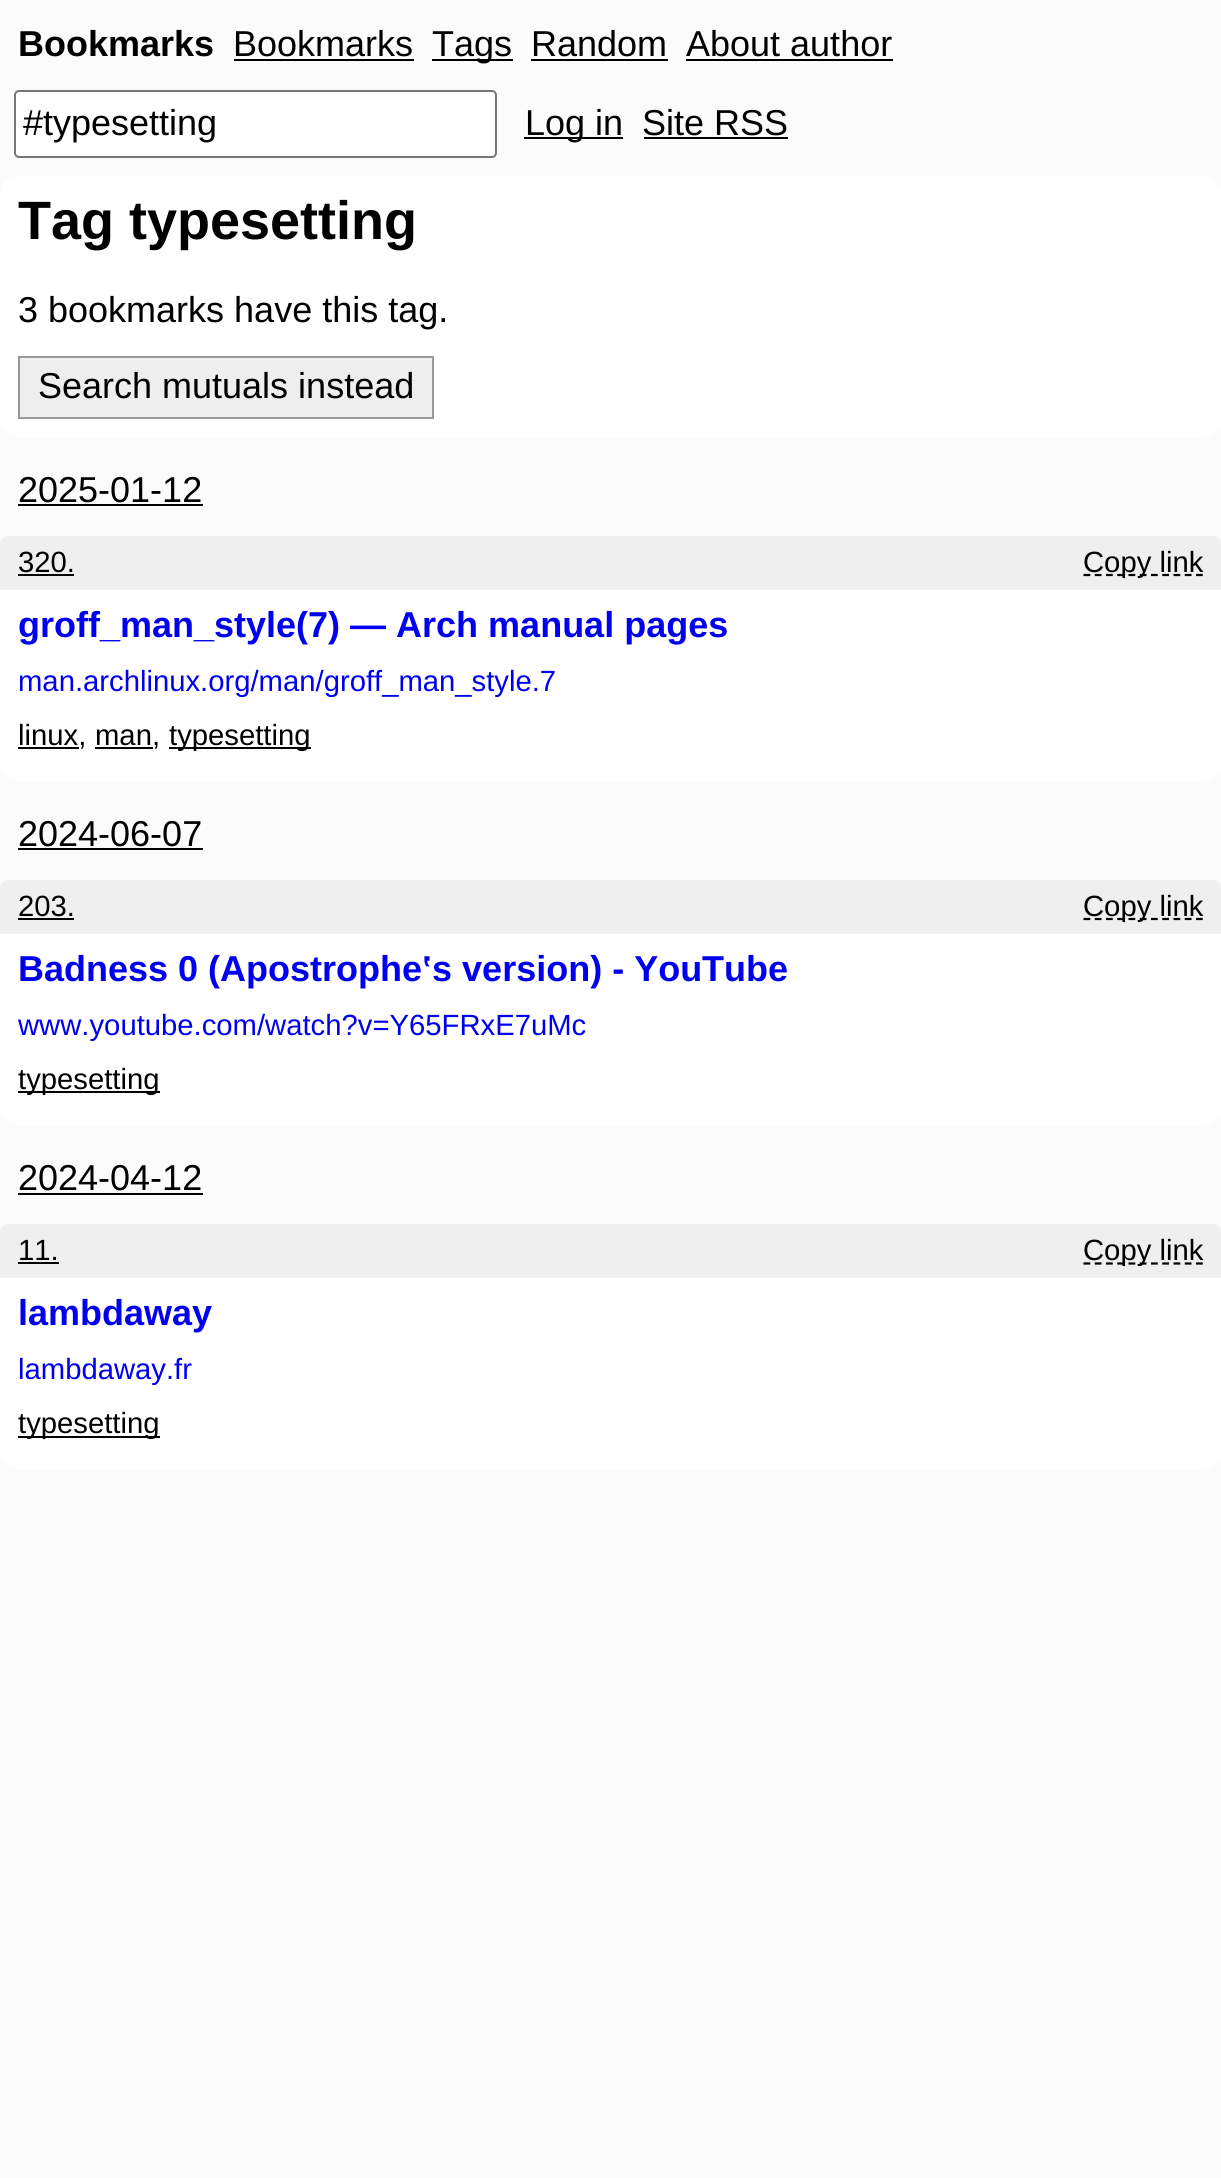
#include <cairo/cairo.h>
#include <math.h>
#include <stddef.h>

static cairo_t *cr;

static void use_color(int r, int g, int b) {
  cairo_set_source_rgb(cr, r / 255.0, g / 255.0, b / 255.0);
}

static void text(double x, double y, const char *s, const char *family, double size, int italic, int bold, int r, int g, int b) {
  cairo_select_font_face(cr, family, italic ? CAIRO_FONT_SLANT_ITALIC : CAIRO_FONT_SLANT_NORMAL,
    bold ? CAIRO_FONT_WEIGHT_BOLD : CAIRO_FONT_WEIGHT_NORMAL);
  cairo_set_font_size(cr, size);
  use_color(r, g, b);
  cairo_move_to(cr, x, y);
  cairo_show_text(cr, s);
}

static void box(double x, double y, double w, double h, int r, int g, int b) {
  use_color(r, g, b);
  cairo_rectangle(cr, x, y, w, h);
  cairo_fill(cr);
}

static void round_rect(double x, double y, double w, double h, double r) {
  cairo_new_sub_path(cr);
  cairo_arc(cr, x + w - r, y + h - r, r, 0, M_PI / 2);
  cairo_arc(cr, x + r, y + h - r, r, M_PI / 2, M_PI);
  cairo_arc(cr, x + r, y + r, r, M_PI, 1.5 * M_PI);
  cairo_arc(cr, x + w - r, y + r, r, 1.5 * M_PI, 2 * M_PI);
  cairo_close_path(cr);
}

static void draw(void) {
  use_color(251, 251, 251);
  cairo_paint(cr);
  box(234, 59, 180, 2, 0, 0, 0);
  box(432, 59, 81, 2, 0, 0, 0);
  box(531, 59, 137, 2, 0, 0, 0);
  box(686, 59, 207, 2, 0, 0, 0);
  use_color(255, 255, 255);
  round_rect(15, 91, 481, 66, 4);
  cairo_fill_preserve(cr);
  use_color(118, 118, 118);
  cairo_stroke(cr);
  box(524, 137, 99, 2, 0, 0, 0);
  box(644, 137, 144, 2, 0, 0, 0);
  use_color(255, 255, 255);
  round_rect(0, 176, 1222, 261, 18);
  cairo_fill(cr);
  use_color(238, 238, 238);
  cairo_rectangle(cr, 19, 357, 414, 61);
  cairo_fill_preserve(cr);
  use_color(153, 153, 153);
  cairo_stroke(cr);
  box(18, 504, 185, 2, 0, 0, 0);
  use_color(255, 255, 255);
  round_rect(0, 536, 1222, 245, 18);
  cairo_fill(cr);
  use_color(239, 239, 239);
  cairo_new_path(cr);
  cairo_move_to(cr, 9, 536);
  cairo_line_to(cr, 1213, 536);
  cairo_curve_to(cr, 1218, 536, 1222, 540, 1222, 545);
  cairo_line_to(cr, 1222, 590);
  cairo_line_to(cr, 0, 590);
  cairo_line_to(cr, 0, 545);
  cairo_curve_to(cr, 0, 540, 4, 536, 9, 536);
  cairo_close_path(cr);
  cairo_fill(cr);
  box(18, 574, 56, 2, 0, 0, 0);
  cairo_new_path(cr);
  cairo_move_to(cr, 1083.5, 575);
  cairo_line_to(cr, 1204, 575);
  cairo_set_line_width(cr, 2.2);
  cairo_set_dash(cr, (double[]){6.75, 4.5}, 2, 0);
  cairo_stroke(cr);
  box(18, 747, 61, 2, 0, 0, 0);
  box(95, 747, 58, 2, 0, 0, 0);
  box(169, 747, 142, 2, 0, 0, 0);
  box(18, 848, 185, 2, 0, 0, 0);
  use_color(255, 255, 255);
  round_rect(0, 880, 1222, 245, 18);
  cairo_fill(cr);
  use_color(239, 239, 239);
  cairo_new_path(cr);
  cairo_move_to(cr, 9, 880);
  cairo_line_to(cr, 1213, 880);
  cairo_curve_to(cr, 1218, 880, 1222, 884, 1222, 889);
  cairo_line_to(cr, 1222, 934);
  cairo_line_to(cr, 0, 934);
  cairo_line_to(cr, 0, 889);
  cairo_curve_to(cr, 0, 884, 4, 880, 9, 880);
  cairo_close_path(cr);
  cairo_fill(cr);
  box(18, 918, 56, 2, 0, 0, 0);
  cairo_new_path(cr);
  cairo_move_to(cr, 1083.5, 919);
  cairo_line_to(cr, 1204, 919);
  cairo_stroke(cr);
  box(18, 1091, 142, 2, 0, 0, 0);
  box(18, 1193, 185, 2, 0, 0, 0);
  use_color(255, 255, 255);
  round_rect(0, 1224, 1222, 245, 18);
  cairo_fill(cr);
  use_color(239, 239, 239);
  cairo_new_path(cr);
  cairo_move_to(cr, 9, 1224);
  cairo_line_to(cr, 1213, 1224);
  cairo_curve_to(cr, 1218, 1224, 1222, 1228, 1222, 1233);
  cairo_line_to(cr, 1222, 1278);
  cairo_line_to(cr, 0, 1278);
  cairo_line_to(cr, 0, 1233);
  cairo_curve_to(cr, 0, 1228, 4, 1224, 9, 1224);
  cairo_close_path(cr);
  cairo_fill(cr);
  box(18, 1262, 41, 2, 0, 0, 0);
  cairo_new_path(cr);
  cairo_move_to(cr, 1083.5, 1263.5);
  cairo_line_to(cr, 1204, 1263.5);
  cairo_stroke(cr);
  box(18, 1436, 142, 2, 0, 0, 0);
  text(18, 56, "Bookmarks", "Liberation Sans", 36, 0, 1, 0, 0, 0);
  text(233, 56, "Bookmarks", "Liberation Sans", 36, 0, 0, 0, 0, 0);
  text(432, 56, "Tags", "Liberation Sans", 36, 0, 0, 0, 0, 0);
  text(531, 56, "Random", "Liberation Sans", 36, 0, 0, 0, 0, 0);
  text(686, 56, "About author", "Liberation Sans", 36, 0, 0, 0, 0, 0);
  text(23, 135, "#typesetting", "Liberation Sans", 36, 0, 0, 0, 0, 0);
  text(525, 135, "Log in", "Liberation Sans", 36, 0, 0, 0, 0, 0);
  text(642, 135, "Site RSS", "Liberation Sans", 36, 0, 0, 0, 0, 0);
  text(18, 239, "Tag typesetting", "Liberation Sans", 54, 0, 1, 0, 0, 0);
  text(18, 322, "3 bookmarks have this tag.", "Liberation Sans", 36, 0, 0, 0, 0, 0);
  text(38, 398, "Search mutuals instead", "Liberation Sans", 36, 0, 0, 0, 0, 0);
  text(18, 502, "2025-01-12", "Liberation Sans", 36, 0, 0, 0, 0, 0);
  text(18, 572, "320.", "Liberation Sans", 29.25, 0, 0, 0, 0, 0);
  text(1083, 572, "Copy link", "Liberation Sans", 29.25, 0, 0, 0, 0, 0);
  text(18, 637, "groff_man_style(7) — Arch manual pages", "Liberation Sans", 36, 0, 1, 0, 0, 238);
  text(18, 691, "man.archlinux.org/man/groff_man_style.7", "Liberation Sans", 29.25, 0, 0, 0, 0, 238);
  text(18, 745, "linux,", "Liberation Sans", 29.25, 0, 0, 0, 0, 0);
  text(95, 745, "man,", "Liberation Sans", 29.25, 0, 0, 0, 0, 0);
  text(169, 745, "typesetting", "Liberation Sans", 29.25, 0, 0, 0, 0, 0);
  text(18, 846, "2024-06-07", "Liberation Sans", 36, 0, 0, 0, 0, 0);
  text(18, 916, "203.", "Liberation Sans", 29.25, 0, 0, 0, 0, 0);
  text(1083, 916, "Copy link", "Liberation Sans", 29.25, 0, 0, 0, 0, 0);
  text(18, 981, "Badness 0 (Apostrophe‛s version) - YouTube", "Liberation Sans", 36, 0, 1, 0, 0, 238);
  text(18, 1035, "www.youtube.com/watch?v=Y65FRxE7uMc", "Liberation Sans", 29.25, 0, 0, 0, 0, 238);
  text(18, 1089, "typesetting", "Liberation Sans", 29.25, 0, 0, 0, 0, 0);
  text(18, 1190, "2024-04-12", "Liberation Sans", 36, 0, 0, 0, 0, 0);
  text(18, 1260, "11.", "Liberation Sans", 29.25, 0, 0, 0, 0, 0);
  text(1083, 1260, "Copy link", "Liberation Sans", 29.25, 0, 0, 0, 0, 0);
  text(18, 1325, "lambdaway", "Liberation Sans", 36, 0, 1, 0, 0, 238);
  text(18, 1379, "lambdaway.fr", "Liberation Sans", 29.25, 0, 0, 0, 0, 238);
  text(18, 1433, "typesetting", "Liberation Sans", 29.25, 0, 0, 0, 0, 0);
}

int main(void) {
  cairo_surface_t *surface = cairo_image_surface_create(CAIRO_FORMAT_RGB24, 1221, 2178);
  cr = cairo_create(surface);
  cairo_font_options_t *options = cairo_font_options_create();
  cairo_font_options_set_hint_metrics(options, CAIRO_HINT_METRICS_OFF);
  cairo_font_options_set_hint_style(options, CAIRO_HINT_STYLE_NONE);
  cairo_set_font_options(cr, options);
  cairo_set_miter_limit(cr, 4);
  draw();
  cairo_surface_write_to_png(surface, "out.png");
  cairo_font_options_destroy(options);
  cairo_destroy(cr);
  cairo_surface_destroy(surface);
  return 0;
}
